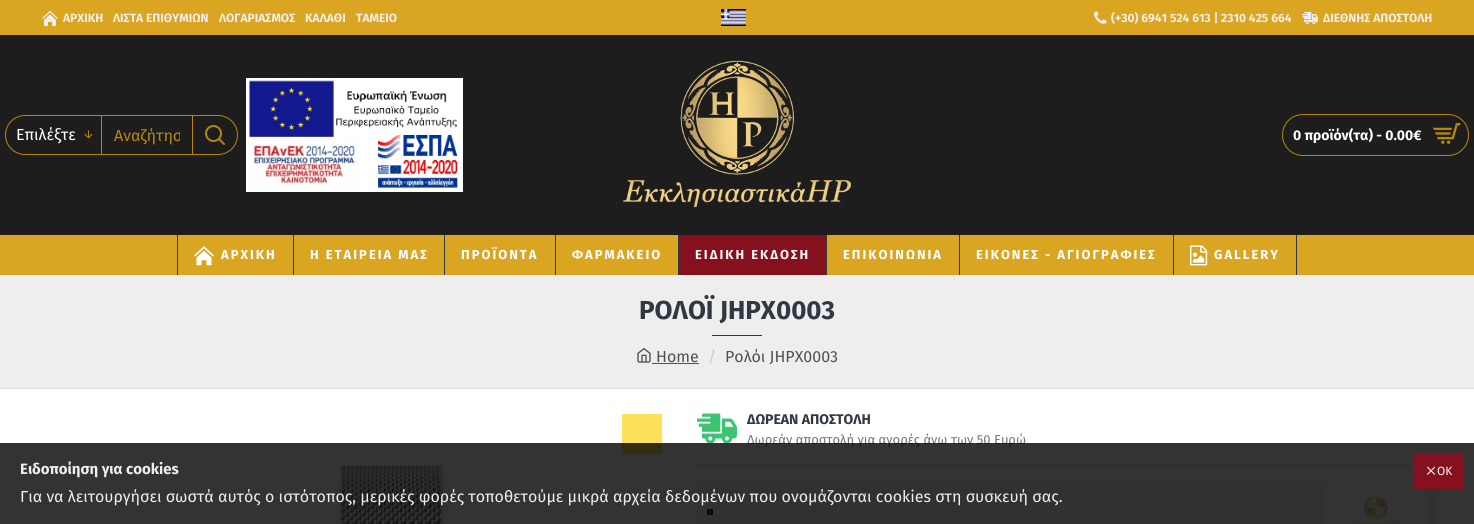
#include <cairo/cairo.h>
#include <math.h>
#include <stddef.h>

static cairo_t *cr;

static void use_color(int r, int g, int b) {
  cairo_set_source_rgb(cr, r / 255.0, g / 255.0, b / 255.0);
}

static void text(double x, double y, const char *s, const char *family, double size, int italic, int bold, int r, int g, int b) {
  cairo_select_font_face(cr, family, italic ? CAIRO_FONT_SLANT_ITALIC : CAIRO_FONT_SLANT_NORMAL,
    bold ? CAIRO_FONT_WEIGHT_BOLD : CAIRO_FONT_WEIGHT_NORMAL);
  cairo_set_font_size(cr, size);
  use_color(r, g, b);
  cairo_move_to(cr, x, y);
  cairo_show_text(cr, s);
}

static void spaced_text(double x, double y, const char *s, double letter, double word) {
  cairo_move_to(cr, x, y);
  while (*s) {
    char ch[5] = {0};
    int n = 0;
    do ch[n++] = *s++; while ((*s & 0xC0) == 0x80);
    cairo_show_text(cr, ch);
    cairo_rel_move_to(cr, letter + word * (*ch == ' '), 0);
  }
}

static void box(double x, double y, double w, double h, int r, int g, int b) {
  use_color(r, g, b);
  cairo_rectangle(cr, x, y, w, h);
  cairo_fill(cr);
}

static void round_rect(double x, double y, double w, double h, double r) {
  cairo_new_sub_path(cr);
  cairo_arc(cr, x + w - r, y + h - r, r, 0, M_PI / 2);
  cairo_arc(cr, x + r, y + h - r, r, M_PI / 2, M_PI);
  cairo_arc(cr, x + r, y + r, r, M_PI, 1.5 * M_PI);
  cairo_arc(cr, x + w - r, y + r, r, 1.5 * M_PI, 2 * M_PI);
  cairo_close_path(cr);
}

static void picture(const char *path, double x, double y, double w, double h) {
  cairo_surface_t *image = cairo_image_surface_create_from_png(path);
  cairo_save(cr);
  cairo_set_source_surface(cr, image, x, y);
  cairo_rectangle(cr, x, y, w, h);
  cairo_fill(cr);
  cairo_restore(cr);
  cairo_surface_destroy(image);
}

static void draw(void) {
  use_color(255, 255, 255);
  cairo_paint(cr);
  box(0, 35, 1474, 200, 29, 29, 29);
  box(0, 0, 1474, 35, 218, 165, 32);
  picture("img_01.png", 42, 10, 16, 16);
  picture("img_02.png", 721, 9, 25, 17);
  picture("img_03.png", 1094, 11, 13, 13);
  picture("img_04.png", 1302, 12, 16, 12);
  round_rect(5.5, 115.5, 232, 39, 19.5);
  use_color(184, 134, 11);
  cairo_set_line_width(cr, 1);
  cairo_stroke(cr);
  box(101, 116, 1, 38, 184, 134, 11);
  picture("img_05.png", 84, 130, 9, 9);
  box(192, 116, 1, 38, 184, 134, 11);
  picture("img_06.png", 205, 125, 20, 20);
  picture("img_07.png", 246, 78, 217, 114);
  picture("img_08.png", 623, 60, 228, 147);
  round_rect(1282.5, 114.5, 186, 41, 20.5);
  cairo_stroke(cr);
  picture("img_09.png", 1433, 123, 28, 21);
  box(0, 235, 1474, 40, 218, 165, 32);
  box(1296, 235, 1, 40, 48, 56, 65);
  box(177, 235, 1, 40, 48, 56, 65);
  picture("img_10.png", 194, 246, 20, 20);
  box(293, 235, 1, 40, 48, 56, 65);
  box(444, 235, 1, 40, 48, 56, 65);
  box(555, 235, 1, 40, 48, 56, 65);
  box(679, 235, 147, 40, 133, 17, 31);
  box(678, 235, 1, 40, 48, 56, 65);
  box(826, 235, 1, 40, 48, 56, 65);
  box(959, 235, 1, 40, 48, 56, 65);
  box(1173, 235, 1, 40, 48, 56, 65);
  picture("img_11.png", 1190, 245, 18, 21);
  box(0, 275, 1474, 113, 238, 238, 238);
  box(712, 335, 50, 1, 133, 17, 31);
  box(0, 388, 1474, 1, 221, 221, 221);
  picture("img_12.png", 637, 348, 14, 15);
  box(652, 363, 47, 1, 80, 80, 80);
  box(622, 414, 40, 40, 254, 225, 91);
  picture("img_13.png", 334, 463, 118, 61);
  box(697, 465, 716, 1, 221, 221, 221);
  picture("img_14.png", 697, 413, 40, 31);
  box(697, 481, 740, 43, 245, 245, 245);
  box(707, 509, 6, 6, 51, 51, 51);
  box(1324, 481, 103, 43, 255, 255, 255);
  picture("img_15.png", 1352, 495, 49, 29);
  text(63, 22, "ΑΡΧΙΚΗ", "Fira Sans", 12, 0, 1, 238, 238, 238);
  text(113, 22, "ΛΙΣΤΑ ΕΠΙΘΥΜΙΩΝ", "Fira Sans", 12, 0, 1, 238, 238, 238);
  text(219, 22, "ΛΟΓΑΡΙΑΣΜΟΣ", "Fira Sans", 12, 0, 1, 238, 238, 238);
  text(305, 22, "ΚΑΛΑΘΙ", "Fira Sans", 12, 0, 1, 238, 238, 238);
  text(356, 22, "ΤΑΜΕΙΟ", "Fira Sans", 12, 0, 1, 238, 238, 238);
  text(1111, 22, "(+30) 6941 524 613 | 2310 425 664", "Fira Sans", 12, 0, 1, 238, 238, 238);
  text(1323, 22, "ΔΙΕΘΝΗΣ ΑΠΟΣΤΟΛΗ", "Fira Sans", 12, 0, 1, 238, 238, 238);
  text(16, 140, "Επιλέξτε", "Fira Sans", 16, 0, 0, 255, 255, 255);
  cairo_save(cr);
  cairo_rectangle(cr, 114, 126, 66, 19);
  cairo_clip(cr);
  text(114, 141, "Αναζήτησ", "Fira Sans", 16, 0, 0, 184, 134, 11);
  cairo_restore(cr);
  text(1293, 140, "0 προϊόν(τα) - 0.00€", "Fira Sans", 14, 0, 1, 255, 255, 255);
  cairo_set_font_size(cr, 13);
  spaced_text(221, 259, "ΑΡΧΙΚΗ", 2, 0);
  spaced_text(310, 259, "Η ΕΤΑΙΡΕΙΑ ΜΑΣ", 2, 0);
  spaced_text(461, 259, "ΠΡΟΪΟΝΤΑ", 2, 0);
  spaced_text(572, 259, "ΦΑΡΜΑΚΕΙΟ", 2, 0);
  use_color(245, 245, 245);
  spaced_text(695, 259, "ΕΙΔΙΚΗ ΕΚΔΟΣΗ", 2, 0);
  use_color(255, 255, 255);
  spaced_text(843, 259, "ΕΠΙΚΟΙΝΩΝΙΑ", 2, 0);
  spaced_text(976, 259, "ΕΙΚΟΝΕΣ - ΑΓΙΟΓΡΑΦΙΕΣ", 2, 0);
  spaced_text(1214, 259, "GALLERY", 2, 0);
  text(639, 319, "ΡΟΛΟΪ JHPX0003", "Fira Sans", 26, 0, 1, 48, 56, 65);
  text(656, 362, "Home", "Fira Sans", 16, 0, 0, 80, 80, 80);
  text(708, 362, "/", "Fira Sans", 16, 0, 0, 204, 204, 204);
  text(725, 362, "Ρολόι JHPX0003", "Fira Sans", 16, 0, 0, 80, 80, 80);
  text(747, 424, "ΔΩΡΕΑΝ ΑΠΟΣΤΟΛΗ", "Fira Sans", 14, 0, 1, 48, 56, 65);
  text(747, 444, "Δωρεάν αποστολή για αγορές άνω των 50 Ευρώ", "Fira Sans", 13, 0, 0, 109, 118, 125);
  cairo_set_source_rgba(cr, 0, 0, 0, 0.8);
  cairo_rectangle(cr, 0, 443, 1474, 81);
  cairo_fill(cr);
  text(20, 474, "Ειδοποίηση για cookies", "Fira Sans", 15, 0, 1, 238, 238, 238);
  text(20, 502, "Για να λειτουργήσει σωστά αυτός ο ιστότοπος, μερικές φορές τοποθετούμε μικρά αρχεία δεδομένων που ονομάζονται cookies στη συσκευή σας.", "Fira Sans", 16, 0, 0, 238, 238, 238);
  box(1413, 453, 51, 36, 133, 17, 31);
  picture("img_16.png", 1427, 466, 8, 9);
  text(1437, 475, "OK", "Fira Sans", 12, 0, 0, 245, 245, 245);
}

int main(void) {
  cairo_surface_t *surface = cairo_image_surface_create(CAIRO_FORMAT_RGB24, 1474, 524);
  cr = cairo_create(surface);
  cairo_font_options_t *options = cairo_font_options_create();
  cairo_font_options_set_hint_metrics(options, CAIRO_HINT_METRICS_OFF);
  cairo_font_options_set_hint_style(options, CAIRO_HINT_STYLE_NONE);
  cairo_set_font_options(cr, options);
  cairo_set_miter_limit(cr, 4);
  draw();
  cairo_surface_write_to_png(surface, "out.png");
  cairo_font_options_destroy(options);
  cairo_destroy(cr);
  cairo_surface_destroy(surface);
  return 0;
}
